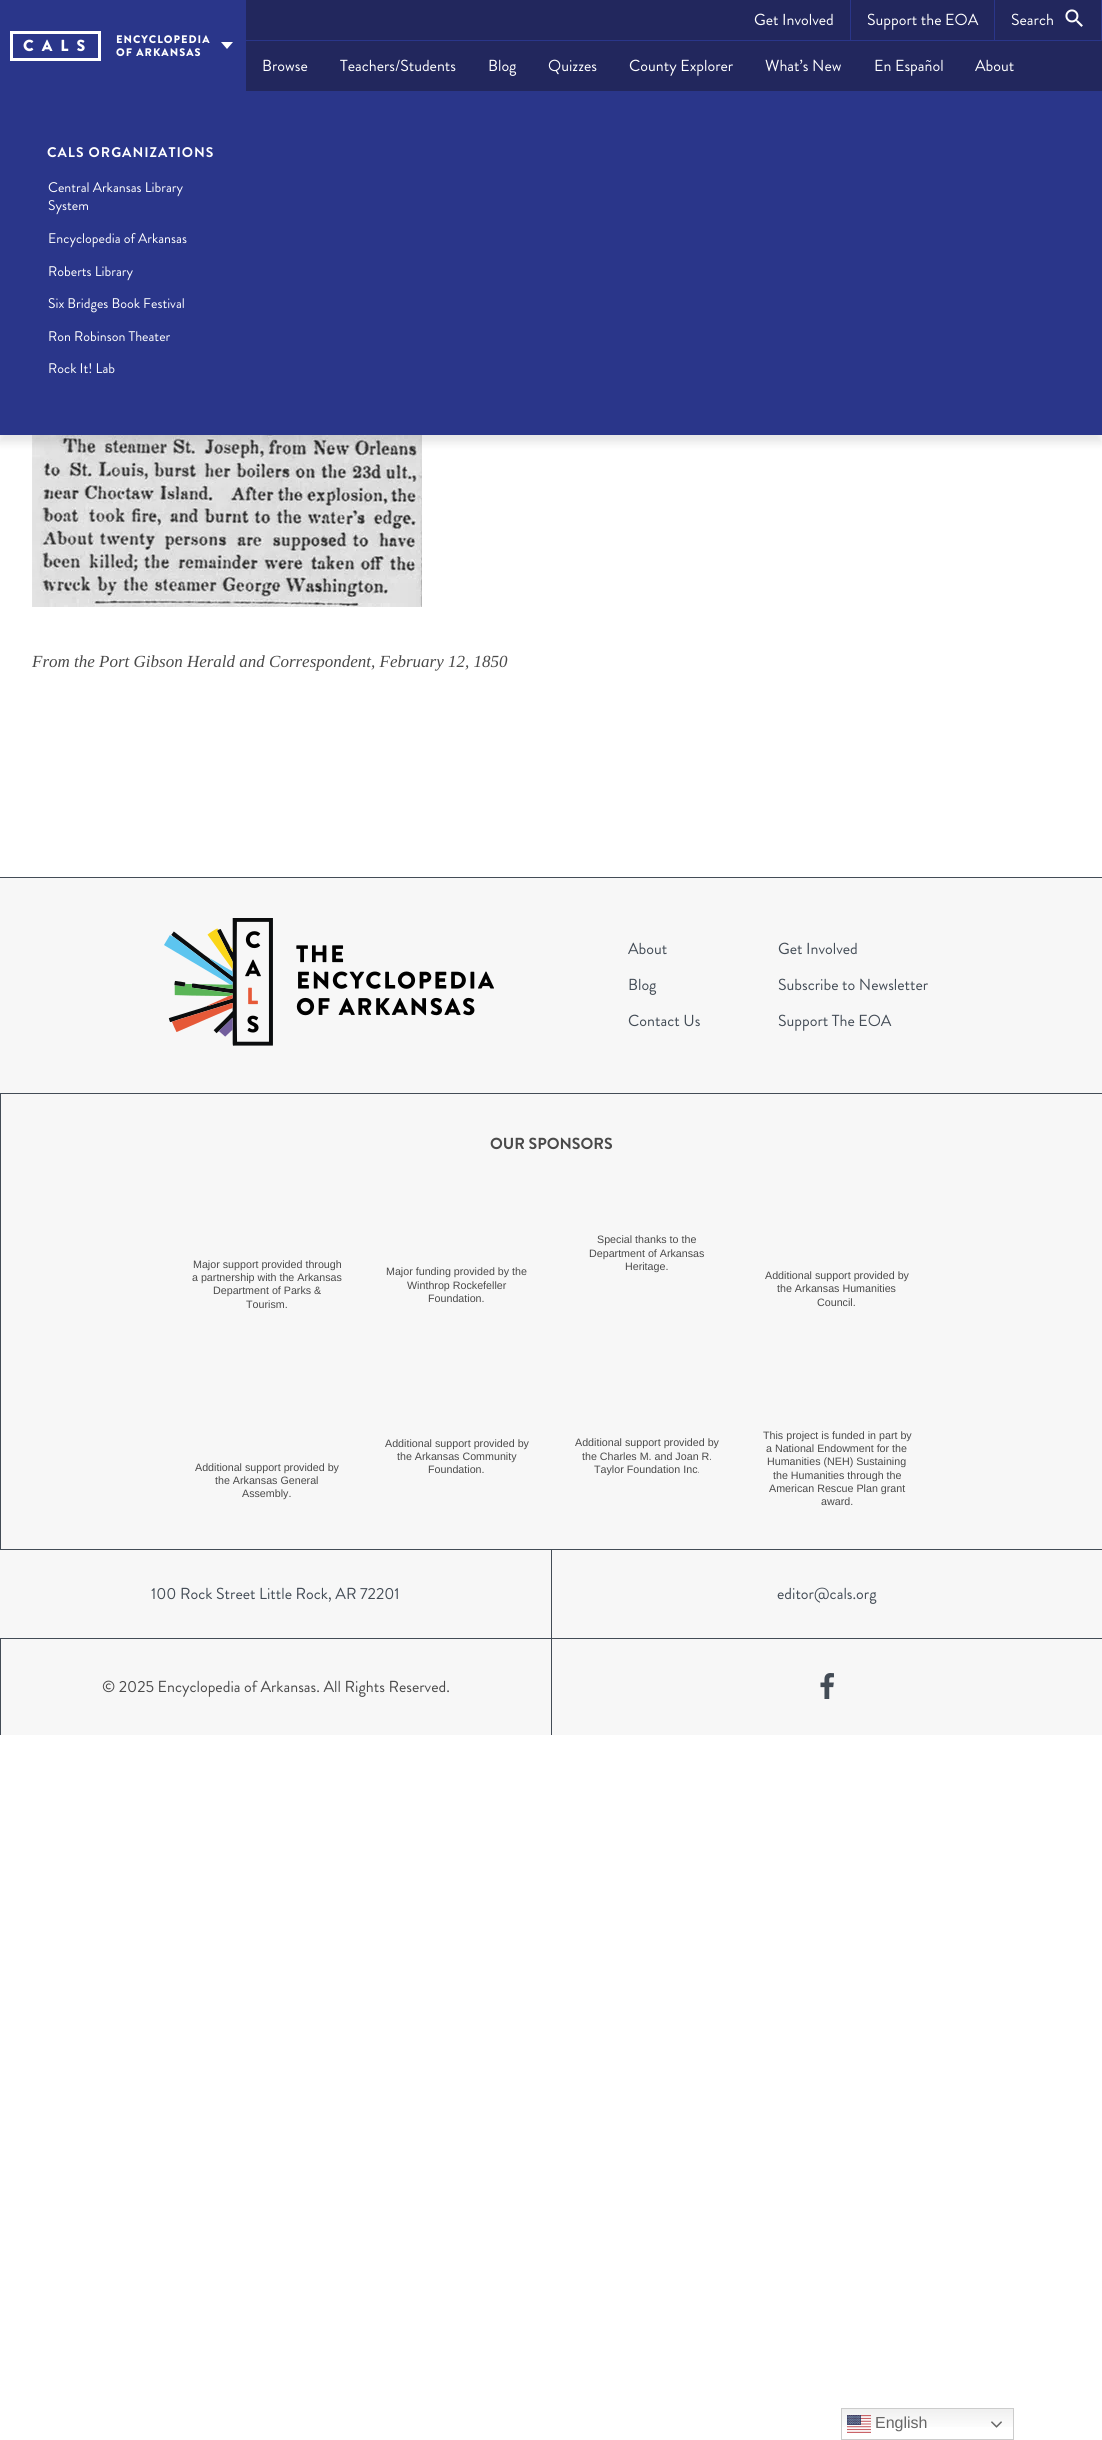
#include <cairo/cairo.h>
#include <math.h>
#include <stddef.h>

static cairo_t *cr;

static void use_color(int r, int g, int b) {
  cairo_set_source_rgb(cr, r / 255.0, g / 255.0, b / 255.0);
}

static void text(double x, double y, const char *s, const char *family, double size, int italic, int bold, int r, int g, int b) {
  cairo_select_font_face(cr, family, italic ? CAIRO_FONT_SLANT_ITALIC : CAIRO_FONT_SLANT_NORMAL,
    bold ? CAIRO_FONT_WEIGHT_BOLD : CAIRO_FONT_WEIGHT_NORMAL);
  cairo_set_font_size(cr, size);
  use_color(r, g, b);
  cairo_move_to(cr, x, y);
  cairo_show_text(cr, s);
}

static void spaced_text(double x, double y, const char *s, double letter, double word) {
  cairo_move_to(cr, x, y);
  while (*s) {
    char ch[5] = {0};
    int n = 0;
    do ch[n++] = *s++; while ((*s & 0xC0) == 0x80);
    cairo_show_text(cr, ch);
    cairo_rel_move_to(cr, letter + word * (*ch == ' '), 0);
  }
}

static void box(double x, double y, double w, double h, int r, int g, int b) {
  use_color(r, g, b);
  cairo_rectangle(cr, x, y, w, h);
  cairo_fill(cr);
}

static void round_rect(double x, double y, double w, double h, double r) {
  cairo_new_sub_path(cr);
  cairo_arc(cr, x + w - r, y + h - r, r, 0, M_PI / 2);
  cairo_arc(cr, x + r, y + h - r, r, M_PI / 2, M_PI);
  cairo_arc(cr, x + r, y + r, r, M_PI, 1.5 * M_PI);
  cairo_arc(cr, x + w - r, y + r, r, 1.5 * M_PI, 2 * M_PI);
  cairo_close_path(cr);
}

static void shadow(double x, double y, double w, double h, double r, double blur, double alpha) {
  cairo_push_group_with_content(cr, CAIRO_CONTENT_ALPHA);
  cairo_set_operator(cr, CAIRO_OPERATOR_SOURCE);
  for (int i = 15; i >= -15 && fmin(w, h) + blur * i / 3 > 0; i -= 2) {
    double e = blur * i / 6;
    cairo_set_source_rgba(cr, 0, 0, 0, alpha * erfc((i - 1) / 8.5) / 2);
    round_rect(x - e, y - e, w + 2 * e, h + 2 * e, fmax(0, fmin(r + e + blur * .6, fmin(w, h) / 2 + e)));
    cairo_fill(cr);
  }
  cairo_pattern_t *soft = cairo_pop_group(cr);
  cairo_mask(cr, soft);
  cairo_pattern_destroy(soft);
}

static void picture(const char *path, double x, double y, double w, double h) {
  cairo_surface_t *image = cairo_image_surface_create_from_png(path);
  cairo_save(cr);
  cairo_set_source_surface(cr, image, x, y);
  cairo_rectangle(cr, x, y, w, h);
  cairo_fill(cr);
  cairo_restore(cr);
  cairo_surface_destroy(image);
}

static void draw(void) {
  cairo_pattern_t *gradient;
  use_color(255, 255, 255);
  cairo_paint(cr);
  picture("img_02.png", 32, 435, 390, 172);
  use_color(10, 10, 10);
  shadow(-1, 100, 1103, 343, 0, 4, 0.1);
  box(246, 0, 856, 91, 34, 39, 93);
  box(0, 0, 246, 92, 42, 54, 138);
  cairo_rectangle(cr, 11.5, 32.5, 88, 27);
  use_color(255, 255, 255);
  cairo_set_line_width(cr, 3);
  cairo_stroke(cr);
  cairo_new_path(cr);
  cairo_move_to(cr, 221, 42);
  cairo_line_to(cr, 233, 42);
  cairo_line_to(cr, 227, 49);
  cairo_close_path(cr);
  cairo_fill(cr);
  box(0, 92, 1102, 343, 42, 54, 138);
  box(246, 40, 856, 1, 42, 54, 138);
  box(850, 0, 1, 40, 42, 54, 138);
  box(1101, 0, 1, 40, 42, 54, 138);
  box(994, 0, 1, 40, 42, 54, 138);
  picture("img_01.png", 1065, 9, 18, 18);
  box(246, 91, 856, 1, 42, 54, 138);
  box(0, 878, 1102, 857, 247, 247, 247);
  box(0, 877, 1102, 1, 67, 76, 86);
  box(0, 1093, 1102, 1, 67, 76, 86);
  picture("img_03.png", 164, 918, 330, 128);
  box(0, 1094, 1, 455, 67, 76, 86);
  box(0, 1549, 1102, 1, 67, 76, 86);
  box(0, 1638, 1102, 1, 67, 76, 86);
  box(551, 1550, 1, 185, 67, 76, 86);
  box(0, 1639, 1, 96, 67, 76, 86);
  picture("img_04.png", 820, 1673, 14, 26);
  gradient = cairo_pattern_create_linear(928, 2408, 928, 2440);
  cairo_pattern_add_color_stop_rgba(gradient, 0, 0.937, 0.937, 0.937, 1);
  cairo_pattern_add_color_stop_rgba(gradient, 0.7, 1, 1, 1, 1);
  cairo_set_source(cr, gradient);
  cairo_pattern_destroy(gradient);
  cairo_rectangle(cr, 842, 2409, 171, 18);
  cairo_fill(cr);
  cairo_rectangle(cr, 841.5, 2408.5, 172, 31);
  use_color(204, 204, 204);
  cairo_set_line_width(cr, 1);
  cairo_stroke(cr);
  picture("img_05.png", 847, 2415, 24, 18);
  picture("img_06.png", 991, 2421, 11, 7);
  cairo_select_font_face(cr, "Brandon Grotesque Black", CAIRO_FONT_SLANT_NORMAL, CAIRO_FONT_WEIGHT_NORMAL);
  cairo_set_font_size(cr, 16);
  use_color(255, 255, 255);
  spaced_text(23, 51, "CALS", 8, 0);
  cairo_set_font_size(cr, 11);
  spaced_text(116, 43, "ENCYCLOPEDIA", 1, 0);
  spaced_text(116, 56, "OF ARKANSAS", 1, 0);
  cairo_select_font_face(cr, "Brandon Grotesque", CAIRO_FONT_SLANT_NORMAL, CAIRO_FONT_WEIGHT_BOLD);
  cairo_set_font_size(cr, 14);
  spaced_text(47, 157, "CALS ORGANIZATIONS", 1, 0);
  text(48, 192, "Central Arkansas Library", "Brandon Grotesque", 14, 0, 0, 255, 255, 255);
  text(48, 210, "System", "Brandon Grotesque", 14, 0, 0, 255, 255, 255);
  text(48, 243, "Encyclopedia of Arkansas", "Brandon Grotesque", 14, 0, 0, 255, 255, 255);
  text(48, 276, "Roberts Library", "Brandon Grotesque", 14, 0, 0, 255, 255, 255);
  text(48, 308, "Six Bridges Book Festival", "Brandon Grotesque", 14, 0, 0, 255, 255, 255);
  text(48, 341, "Ron Robinson Theater", "Brandon Grotesque", 14, 0, 0, 255, 255, 255);
  text(48, 373, "Rock It! Lab", "Brandon Grotesque", 14, 0, 0, 255, 255, 255);
  text(754, 25, "Get Involved", "Brandon Grotesque", 16, 0, 0, 255, 255, 255);
  text(867, 25, "Support the EOA", "Brandon Grotesque", 16, 0, 0, 255, 255, 255);
  text(1011, 25, "Search", "Brandon Grotesque", 16, 0, 0, 255, 255, 255);
  text(262, 71, "Browse", "Brandon Grotesque", 16, 0, 0, 255, 255, 255);
  text(340, 71, "Teachers/Students", "Brandon Grotesque", 16, 0, 0, 255, 255, 255);
  text(488, 71, "Blog", "Brandon Grotesque", 16, 0, 0, 255, 255, 255);
  text(548, 71, "Quizzes", "Brandon Grotesque", 16, 0, 0, 255, 255, 255);
  text(629, 71, "County Explorer", "Brandon Grotesque", 16, 0, 0, 255, 255, 255);
  text(765, 71, "What’s New", "Brandon Grotesque", 16, 0, 0, 255, 255, 255);
  text(874, 71, "En Español", "Brandon Grotesque", 16, 0, 0, 255, 255, 255);
  text(975, 71, "About", "Brandon Grotesque", 16, 0, 0, 255, 255, 255);
  text(32, 667, "From the Port Gibson Herald and Correspondent, February 12, 1850", "Liberation Serif", 17, 1, 0, 74, 74, 74);
  text(628, 954, "About", "Brandon Grotesque", 16, 0, 0, 67, 76, 86);
  text(778, 954, "Get Involved", "Brandon Grotesque", 16, 0, 0, 67, 76, 86);
  text(628, 990, "Blog", "Brandon Grotesque", 16, 0, 0, 67, 76, 86);
  text(778, 990, "Subscribe to Newsletter", "Brandon Grotesque", 16, 0, 0, 67, 76, 86);
  text(628, 1026, "Contact Us", "Brandon Grotesque", 16, 0, 0, 67, 76, 86);
  text(778, 1026, "Support The EOA", "Brandon Grotesque", 16, 0, 0, 67, 76, 86);
  text(490, 1149, "OUR SPONSORS", "Brandon Grotesque", 16, 0, 1, 74, 74, 74);
  text(597, 1243, "Special thanks to the", "Liberation Sans", 10.7, 0, 0, 74, 74, 74);
  text(589, 1257, "Department of Arkansas", "Liberation Sans", 10.7, 0, 0, 74, 74, 74);
  text(625, 1270, "Heritage.", "Liberation Sans", 10.7, 0, 0, 74, 74, 74);
  text(193, 1268, "Major support provided through", "Liberation Sans", 10.7, 0, 0, 74, 74, 74);
  text(192, 1281, "a partnership with the Arkansas", "Liberation Sans", 10.7, 0, 0, 74, 74, 74);
  text(213, 1294, "Department of Parks &", "Liberation Sans", 10.7, 0, 0, 74, 74, 74);
  text(246, 1308, "Tourism.", "Liberation Sans", 10.7, 0, 0, 74, 74, 74);
  text(386, 1275, "Major funding provided by the", "Liberation Sans", 10.7, 0, 0, 74, 74, 74);
  text(407, 1289, "Winthrop Rockefeller", "Liberation Sans", 10.7, 0, 0, 74, 74, 74);
  text(428, 1302, "Foundation.", "Liberation Sans", 10.7, 0, 0, 74, 74, 74);
  text(765, 1279, "Additional support provided by", "Liberation Sans", 10.7, 0, 0, 74, 74, 74);
  text(777, 1292, "the Arkansas Humanities", "Liberation Sans", 10.7, 0, 0, 74, 74, 74);
  text(817, 1306, "Council.", "Liberation Sans", 10.7, 0, 0, 74, 74, 74);
  text(385, 1447, "Additional support provided by", "Liberation Sans", 10.7, 0, 0, 74, 74, 74);
  text(397, 1460, "the Arkansas Community", "Liberation Sans", 10.7, 0, 0, 74, 74, 74);
  text(428, 1473, "Foundation.", "Liberation Sans", 10.7, 0, 0, 74, 74, 74);
  text(575, 1446, "Additional support provided by", "Liberation Sans", 10.7, 0, 0, 74, 74, 74);
  text(582, 1460, "the Charles M. and Joan R.", "Liberation Sans", 10.7, 0, 0, 74, 74, 74);
  text(594, 1473, "Taylor Foundation Inc.", "Liberation Sans", 10.7, 0, 0, 74, 74, 74);
  text(763, 1439, "This project is funded in part by", "Liberation Sans", 10.7, 0, 0, 74, 74, 74);
  text(766, 1452, "a National Endowment for the", "Liberation Sans", 10.7, 0, 0, 74, 74, 74);
  text(767, 1465, "Humanities (NEH) Sustaining", "Liberation Sans", 10.7, 0, 0, 74, 74, 74);
  text(773, 1479, "the Humanities through the", "Liberation Sans", 10.7, 0, 0, 74, 74, 74);
  text(769, 1492, "American Rescue Plan grant", "Liberation Sans", 10.7, 0, 0, 74, 74, 74);
  text(821, 1505, "award.", "Liberation Sans", 10.7, 0, 0, 74, 74, 74);
  text(195, 1471, "Additional support provided by", "Liberation Sans", 10.7, 0, 0, 74, 74, 74);
  text(215, 1484, "the Arkansas General", "Liberation Sans", 10.7, 0, 0, 74, 74, 74);
  text(242, 1497, "Assembly.", "Liberation Sans", 10.7, 0, 0, 74, 74, 74);
  text(151, 1599, "100 Rock Street Little Rock, AR 72201", "Brandon Grotesque", 16, 0, 0, 67, 76, 86);
  text(777, 1599, "editor@cals.org", "Brandon Grotesque", 16, 0, 0, 67, 76, 86);
  text(102, 1692, "© 2025 Encyclopedia of Arkansas. All Rights Reserved.", "Brandon Grotesque", 16, 0, 0, 74, 74, 74);
  text(875, 2428, "English", "Liberation Sans", 16, 0, 0, 102, 102, 102);
}

int main(void) {
  cairo_surface_t *surface = cairo_image_surface_create(CAIRO_FORMAT_RGB24, 1102, 2440);
  cr = cairo_create(surface);
  cairo_font_options_t *options = cairo_font_options_create();
  cairo_font_options_set_hint_metrics(options, CAIRO_HINT_METRICS_OFF);
  cairo_font_options_set_hint_style(options, CAIRO_HINT_STYLE_NONE);
  cairo_set_font_options(cr, options);
  cairo_set_miter_limit(cr, 4);
  draw();
  cairo_surface_write_to_png(surface, "out.png");
  cairo_font_options_destroy(options);
  cairo_destroy(cr);
  cairo_surface_destroy(surface);
  return 0;
}
